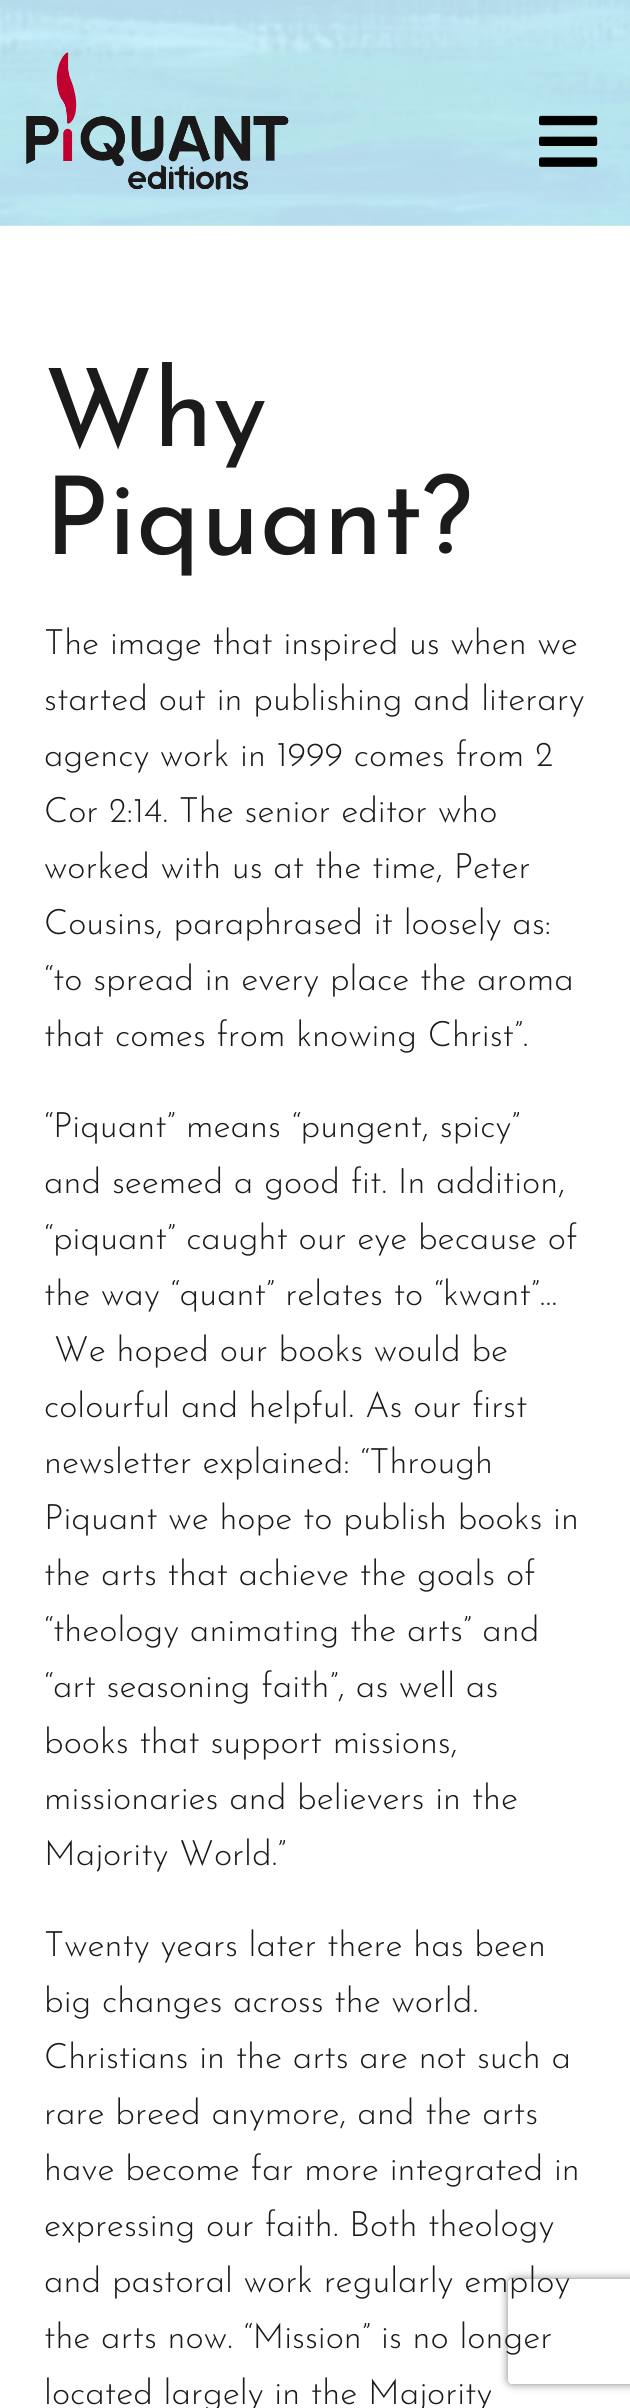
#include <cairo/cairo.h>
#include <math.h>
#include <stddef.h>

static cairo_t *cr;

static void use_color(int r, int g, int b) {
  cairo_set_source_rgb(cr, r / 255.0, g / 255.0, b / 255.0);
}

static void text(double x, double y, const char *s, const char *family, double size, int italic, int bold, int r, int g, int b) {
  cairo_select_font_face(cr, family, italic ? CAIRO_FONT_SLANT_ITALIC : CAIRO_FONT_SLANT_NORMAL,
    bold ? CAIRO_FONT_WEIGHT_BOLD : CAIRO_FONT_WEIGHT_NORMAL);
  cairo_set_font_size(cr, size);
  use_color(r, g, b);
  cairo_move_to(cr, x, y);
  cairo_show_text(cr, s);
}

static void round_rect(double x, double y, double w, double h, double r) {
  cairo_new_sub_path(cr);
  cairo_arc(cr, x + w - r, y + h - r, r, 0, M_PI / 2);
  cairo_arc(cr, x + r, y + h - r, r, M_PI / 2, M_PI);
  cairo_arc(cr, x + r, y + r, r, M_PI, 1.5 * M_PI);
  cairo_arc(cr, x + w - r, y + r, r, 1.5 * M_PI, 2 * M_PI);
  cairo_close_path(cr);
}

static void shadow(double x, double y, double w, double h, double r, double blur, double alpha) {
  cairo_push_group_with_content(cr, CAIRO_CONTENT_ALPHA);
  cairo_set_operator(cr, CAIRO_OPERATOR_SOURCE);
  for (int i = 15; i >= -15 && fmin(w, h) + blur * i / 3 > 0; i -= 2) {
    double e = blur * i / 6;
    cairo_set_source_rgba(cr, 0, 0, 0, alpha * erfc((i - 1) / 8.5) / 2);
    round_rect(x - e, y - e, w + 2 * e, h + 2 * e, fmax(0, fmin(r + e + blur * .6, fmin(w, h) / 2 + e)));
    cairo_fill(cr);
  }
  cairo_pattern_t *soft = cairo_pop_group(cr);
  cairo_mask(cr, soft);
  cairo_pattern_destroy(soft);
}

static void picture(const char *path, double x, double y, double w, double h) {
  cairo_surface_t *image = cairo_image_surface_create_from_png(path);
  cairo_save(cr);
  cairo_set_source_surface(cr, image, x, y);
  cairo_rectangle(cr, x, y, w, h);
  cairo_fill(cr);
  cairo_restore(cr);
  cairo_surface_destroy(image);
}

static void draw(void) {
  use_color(255, 255, 255);
  cairo_paint(cr);
  picture("img_01.png", 0, 0, 630, 226);
  picture("img_02.png", 26, 52, 263, 138);
  picture("img_03.png", 539, 115, 59, 52);
  cairo_save(cr);
  cairo_set_fill_rule(cr, CAIRO_FILL_RULE_EVEN_ODD);
  cairo_new_path(cr);
  cairo_move_to(cr, 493, 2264);
  cairo_line_to(cr, 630, 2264);
  cairo_line_to(cr, 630, 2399);
  cairo_line_to(cr, 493, 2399);
  cairo_close_path(cr);
  cairo_move_to(cr, 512, 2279);
  cairo_line_to(cr, 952, 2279);
  cairo_curve_to(cr, 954, 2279, 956, 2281, 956, 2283);
  cairo_line_to(cr, 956, 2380);
  cairo_curve_to(cr, 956, 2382, 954, 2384, 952, 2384);
  cairo_line_to(cr, 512, 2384);
  cairo_curve_to(cr, 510, 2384, 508, 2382, 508, 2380);
  cairo_line_to(cr, 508, 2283);
  cairo_curve_to(cr, 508, 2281, 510, 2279, 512, 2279);
  cairo_close_path(cr);
  cairo_clip(cr);
  use_color(128, 128, 128);
  shadow(508, 2279, 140, 105, 4, 4.5, 1);
  cairo_restore(cr);
  text(44, 446, "Why", "Josefin Sans", 108.5, 0, 0, 27, 27, 27);
  text(44, 554, "Piquant?", "Josefin Sans", 108.5, 0, 0, 27, 27, 27);
  text(44, 654, "The image that inspired us when we", "Josefin Sans Light", 35, 0, 0, 27, 27, 27);
  text(44, 710, "started out in publishing and literary", "Josefin Sans Light", 35, 0, 0, 27, 27, 27);
  text(44, 766, "agency work in 1999 comes from 2", "Josefin Sans Light", 35, 0, 0, 27, 27, 27);
  text(44, 822, "Cor 2:14. The senior editor who", "Josefin Sans Light", 35, 0, 0, 27, 27, 27);
  text(44, 878, "worked with us at the time, Peter", "Josefin Sans Light", 35, 0, 0, 27, 27, 27);
  text(44, 934, "Cousins, paraphrased it loosely as:", "Josefin Sans Light", 35, 0, 0, 27, 27, 27);
  text(44, 990, "“to spread in every place the aroma", "Josefin Sans Light", 35, 0, 0, 27, 27, 27);
  text(44, 1046, "that comes from knowing Christ”.", "Josefin Sans Light", 35, 0, 0, 27, 27, 27);
  text(44, 1137, "“Piquant” means “pungent, spicy”", "Josefin Sans Light", 35, 0, 0, 27, 27, 27);
  text(44, 1193, "and seemed a good fit. In addition,", "Josefin Sans Light", 35, 0, 0, 27, 27, 27);
  text(44, 1249, "“piquant” caught our eye because of", "Josefin Sans Light", 35, 0, 0, 27, 27, 27);
  text(44, 1305, "the way “quant” relates to “kwant”…", "Josefin Sans Light", 35, 0, 0, 27, 27, 27);
  text(54, 1361, "We hoped our books would be", "Josefin Sans Light", 35, 0, 0, 27, 27, 27);
  text(44, 1417, "colourful and helpful. As our first", "Josefin Sans Light", 35, 0, 0, 27, 27, 27);
  text(44, 1473, "newsletter explained: “Through", "Josefin Sans Light", 35, 0, 0, 27, 27, 27);
  text(44, 1529, "Piquant we hope to publish books in", "Josefin Sans Light", 35, 0, 0, 27, 27, 27);
  text(44, 1585, "the arts that achieve the goals of", "Josefin Sans Light", 35, 0, 0, 27, 27, 27);
  text(44, 1641, "“theology animating the arts” and", "Josefin Sans Light", 35, 0, 0, 27, 27, 27);
  text(44, 1697, "“art seasoning faith”, as well as", "Josefin Sans Light", 35, 0, 0, 27, 27, 27);
  text(44, 1753, "books that support missions,", "Josefin Sans Light", 35, 0, 0, 27, 27, 27);
  text(44, 1809, "missionaries and believers in the", "Josefin Sans Light", 35, 0, 0, 27, 27, 27);
  text(44, 1865, "Majority World.”", "Josefin Sans Light", 35, 0, 0, 27, 27, 27);
  text(44, 1956, "Twenty years later there has been", "Josefin Sans Light", 35, 0, 0, 27, 27, 27);
  text(44, 2012, "big changes across the world.", "Josefin Sans Light", 35, 0, 0, 27, 27, 27);
  text(44, 2068, "Christians in the arts are not such a", "Josefin Sans Light", 35, 0, 0, 27, 27, 27);
  text(44, 2124, "rare breed anymore, and the arts", "Josefin Sans Light", 35, 0, 0, 27, 27, 27);
  text(44, 2180, "have become far more integrated in", "Josefin Sans Light", 35, 0, 0, 27, 27, 27);
  text(44, 2236, "expressing our faith. Both theology", "Josefin Sans Light", 35, 0, 0, 27, 27, 27);
  text(44, 2292, "and pastoral work regularly employ", "Josefin Sans Light", 35, 0, 0, 27, 27, 27);
  text(44, 2348, "the arts now. “Mission” is no longer", "Josefin Sans Light", 35, 0, 0, 27, 27, 27);
  text(44, 2404, "located largely in the Majority", "Josefin Sans Light", 35, 0, 0, 27, 27, 27);
}

int main(void) {
  cairo_surface_t *surface = cairo_image_surface_create(CAIRO_FORMAT_RGB24, 630, 2408);
  cr = cairo_create(surface);
  cairo_font_options_t *options = cairo_font_options_create();
  cairo_font_options_set_hint_metrics(options, CAIRO_HINT_METRICS_OFF);
  cairo_font_options_set_hint_style(options, CAIRO_HINT_STYLE_NONE);
  cairo_set_font_options(cr, options);
  cairo_set_miter_limit(cr, 4);
  draw();
  cairo_surface_write_to_png(surface, "out.png");
  cairo_font_options_destroy(options);
  cairo_destroy(cr);
  cairo_surface_destroy(surface);
  return 0;
}
